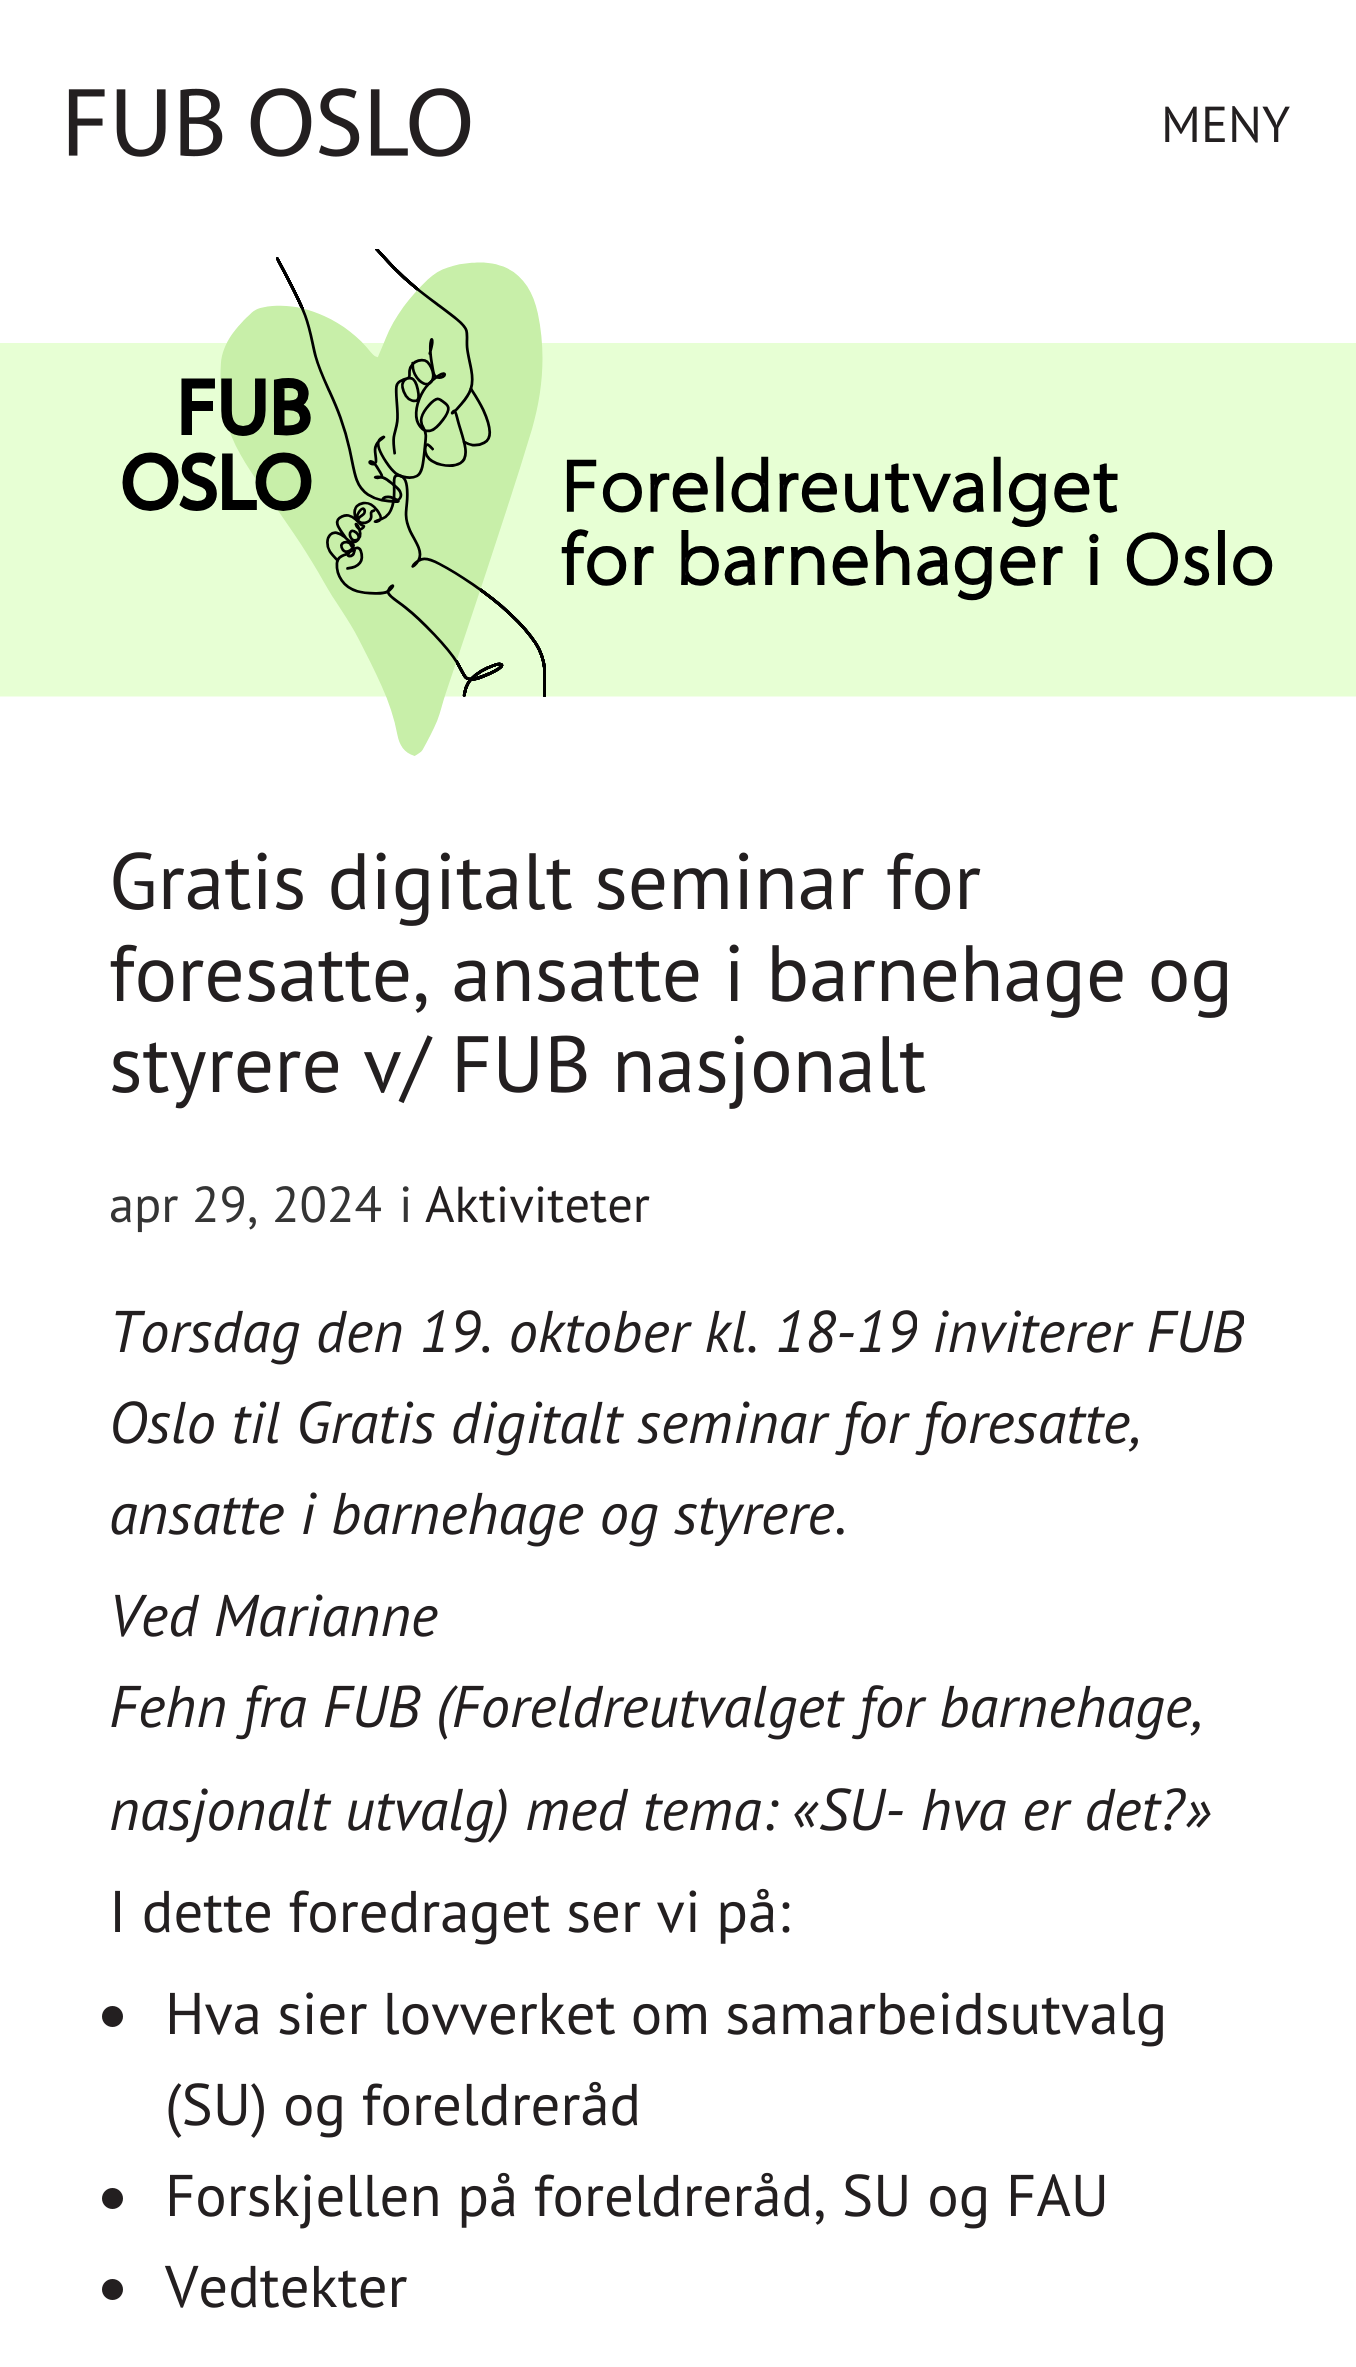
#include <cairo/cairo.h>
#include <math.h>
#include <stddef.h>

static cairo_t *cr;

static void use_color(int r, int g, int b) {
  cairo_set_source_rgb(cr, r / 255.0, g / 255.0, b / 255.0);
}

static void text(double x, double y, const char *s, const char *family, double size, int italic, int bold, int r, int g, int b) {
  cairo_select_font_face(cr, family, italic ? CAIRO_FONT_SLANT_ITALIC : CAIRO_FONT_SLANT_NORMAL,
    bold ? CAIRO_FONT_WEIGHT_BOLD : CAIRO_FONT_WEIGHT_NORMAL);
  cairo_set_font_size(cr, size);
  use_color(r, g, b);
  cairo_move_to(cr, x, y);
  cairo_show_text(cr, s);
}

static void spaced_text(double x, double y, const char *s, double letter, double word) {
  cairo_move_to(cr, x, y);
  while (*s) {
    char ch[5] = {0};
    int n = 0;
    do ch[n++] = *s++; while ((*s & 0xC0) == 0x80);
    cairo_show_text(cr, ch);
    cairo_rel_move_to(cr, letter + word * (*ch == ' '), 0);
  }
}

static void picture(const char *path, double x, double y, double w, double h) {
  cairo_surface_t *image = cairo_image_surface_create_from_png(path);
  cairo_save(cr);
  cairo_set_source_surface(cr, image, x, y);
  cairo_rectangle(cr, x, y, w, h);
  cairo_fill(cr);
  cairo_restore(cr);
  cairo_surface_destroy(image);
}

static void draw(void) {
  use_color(255, 255, 255);
  cairo_paint(cr);
  picture("img_01.png", 68, 88, 403, 69);
  picture("img_02.png", 0, 249, 1356, 507);
  use_color(35, 31, 32);
  cairo_arc(cr, 112.5, 2016.5, 10.5, 0, 2 * M_PI);
  cairo_fill(cr);
  cairo_arc(cr, 112.5, 2198.5, 10.5, 0, 2 * M_PI);
  cairo_fill(cr);
  cairo_arc(cr, 112.5, 2289.5, 10.5, 0, 2 * M_PI);
  cairo_fill(cr);
  text(1161, 142, "MENY", "PT Sans", 50.5, 0, 0, 35, 31, 32);
  text(109, 909, "Gratis digitalt seminar for", "PT Sans", 79.7, 0, 0, 35, 31, 32);
  text(109, 1001, "foresatte, ansatte i barnehage og", "PT Sans", 79.7, 0, 0, 35, 31, 32);
  text(109, 1092, "styrere v/ FUB nasjonalt", "PT Sans", 79.7, 0, 0, 35, 31, 32);
  text(109, 1222, "apr 29, 2024", "PT Sans", 50.5, 0, 0, 53, 53, 53);
  text(399, 1222, "i", "PT Sans", 50.5, 0, 0, 53, 53, 53);
  text(425, 1222, "Aktiviteter", "PT Sans", 50.5, 0, 0, 35, 31, 32);
  text(109, 1352, "Torsdag den 19. oktober kl. 18-19", "PT Sans", 58.75, 1, 0, 35, 31, 32);
  text(932, 1352, "inviterer FUB", "PT Sans", 58.75, 1, 0, 35, 31, 32);
  spaced_text(109, 1443, "Oslo til Gratis digitalt seminar for foresatte,", 0, -0.25);
  text(109, 1534, "ansatte i barnehage og styrere", "PT Sans", 58.75, 1, 0, 35, 31, 32);
  text(834, 1534, ".", "PT Sans", 58.75, 0, 0, 35, 31, 32);
  text(109, 1636, "Ved Marianne", "PT Sans", 58.75, 1, 0, 35, 31, 32);
  text(109, 1727, "Fehn fra FUB (Foreldreutvalget for barnehage,", "PT Sans", 58.75, 1, 0, 35, 31, 32);
  text(109, 1830, "nasjonalt utvalg) med tema:", "PT Sans", 58.75, 1, 0, 35, 31, 32);
  text(792, 1830, "«SU- hva er det?»", "PT Sans", 58.75, 1, 0, 35, 31, 32);
  text(109, 1932, "I dette foredraget ser vi på:", "PT Sans", 58.75, 0, 0, 35, 31, 32);
  spaced_text(165, 2034, "Hva sier lovverket om samarbeidsutvalg", 0, -0.5);
  text(165, 2125, "(SU) og foreldreråd", "PT Sans", 58.75, 0, 0, 35, 31, 32);
  text(165, 2216, "Forskjellen på foreldreråd, SU og FAU", "PT Sans", 58.75, 0, 0, 35, 31, 32);
  text(165, 2307, "Vedtekter", "PT Sans", 58.75, 0, 0, 35, 31, 32);
}

int main(void) {
  cairo_surface_t *surface = cairo_image_surface_create(CAIRO_FORMAT_RGB24, 1356, 2367);
  cr = cairo_create(surface);
  cairo_font_options_t *options = cairo_font_options_create();
  cairo_font_options_set_hint_metrics(options, CAIRO_HINT_METRICS_OFF);
  cairo_font_options_set_hint_style(options, CAIRO_HINT_STYLE_NONE);
  cairo_set_font_options(cr, options);
  cairo_set_miter_limit(cr, 4);
  draw();
  cairo_surface_write_to_png(surface, "out.png");
  cairo_font_options_destroy(options);
  cairo_destroy(cr);
  cairo_surface_destroy(surface);
  return 0;
}
